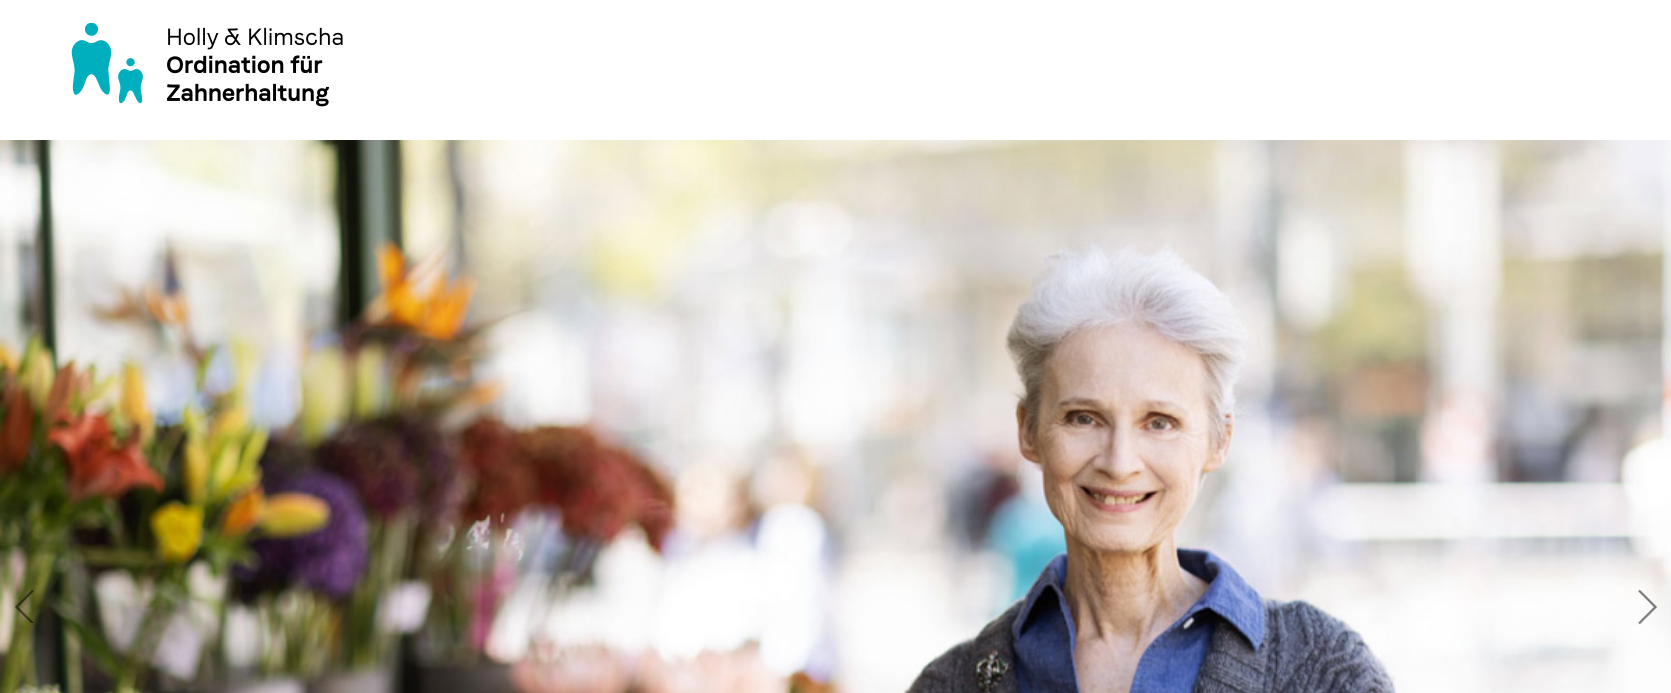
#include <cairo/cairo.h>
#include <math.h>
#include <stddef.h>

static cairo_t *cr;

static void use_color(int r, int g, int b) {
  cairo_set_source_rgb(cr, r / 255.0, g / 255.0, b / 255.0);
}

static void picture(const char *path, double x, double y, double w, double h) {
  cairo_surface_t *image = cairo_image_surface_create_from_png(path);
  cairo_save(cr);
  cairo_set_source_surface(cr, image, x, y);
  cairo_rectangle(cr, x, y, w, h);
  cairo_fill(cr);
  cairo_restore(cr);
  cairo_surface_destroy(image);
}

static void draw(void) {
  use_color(255, 255, 255);
  cairo_paint(cr);
  picture("img_01.png", 71, 23, 272, 84);
  picture("img_02.png", 0, 140, 1671, 553);
  cairo_save(cr);
  cairo_rectangle(cr, 7, 590, 35, 33);
  cairo_clip(cr);
  cairo_new_path(cr);
  cairo_move_to(cr, 33, 623.5);
  cairo_line_to(cr, 16.5, 607);
  cairo_line_to(cr, 33, 590.5);
  cairo_set_source_rgba(cr, 0, 0, 0, 0.5);
  cairo_set_line_width(cr, 2.3);
  cairo_stroke(cr);
  cairo_restore(cr);
  cairo_new_path(cr);
  cairo_move_to(cr, 1639, 623.5);
  cairo_line_to(cr, 1655.5, 607);
  cairo_line_to(cr, 1639, 590.5);
  cairo_set_source_rgba(cr, 0, 0, 0, 0.5);
  cairo_set_line_width(cr, 2.3);
  cairo_stroke(cr);
}

int main(void) {
  cairo_surface_t *surface = cairo_image_surface_create(CAIRO_FORMAT_RGB24, 1671, 693);
  cr = cairo_create(surface);
  cairo_font_options_t *options = cairo_font_options_create();
  cairo_font_options_set_hint_metrics(options, CAIRO_HINT_METRICS_OFF);
  cairo_font_options_set_hint_style(options, CAIRO_HINT_STYLE_NONE);
  cairo_set_font_options(cr, options);
  cairo_set_miter_limit(cr, 4);
  draw();
  cairo_surface_write_to_png(surface, "out.png");
  cairo_font_options_destroy(options);
  cairo_destroy(cr);
  cairo_surface_destroy(surface);
  return 0;
}
